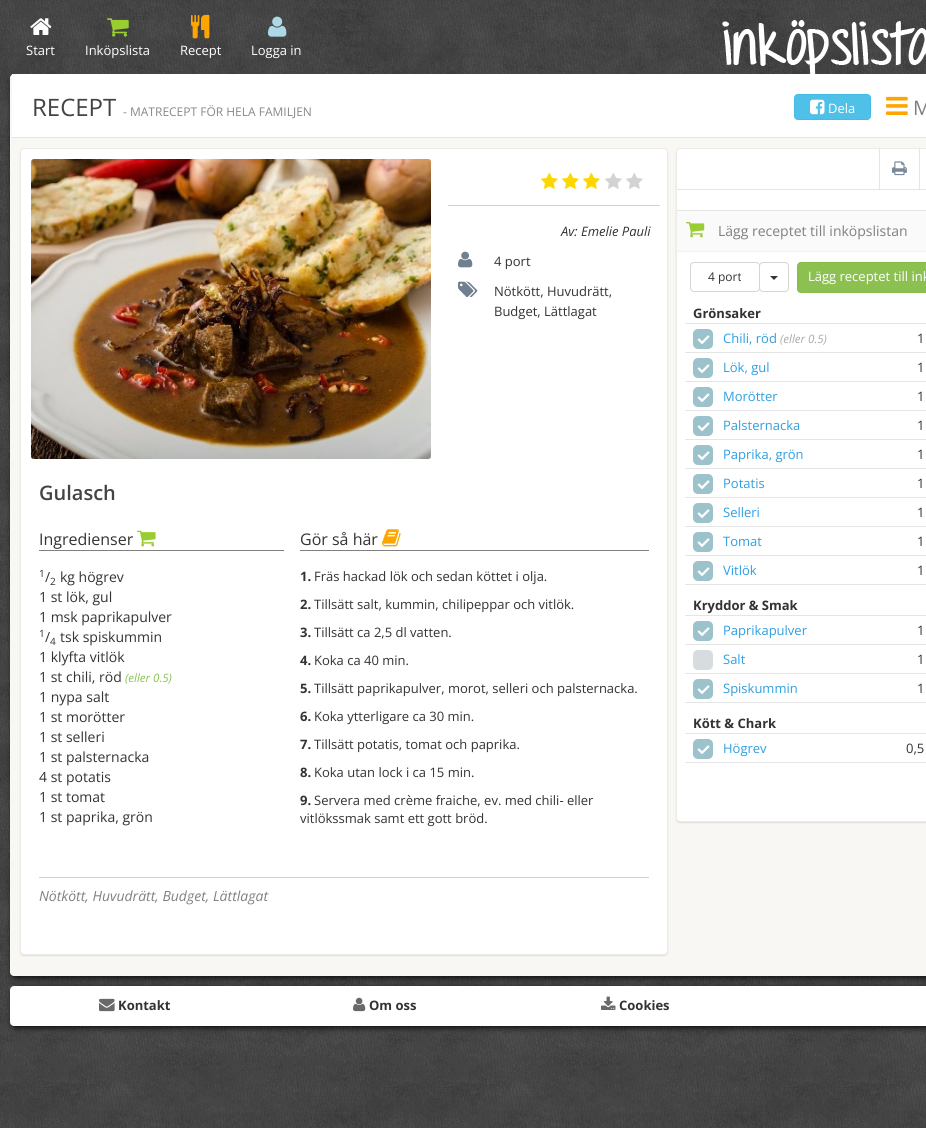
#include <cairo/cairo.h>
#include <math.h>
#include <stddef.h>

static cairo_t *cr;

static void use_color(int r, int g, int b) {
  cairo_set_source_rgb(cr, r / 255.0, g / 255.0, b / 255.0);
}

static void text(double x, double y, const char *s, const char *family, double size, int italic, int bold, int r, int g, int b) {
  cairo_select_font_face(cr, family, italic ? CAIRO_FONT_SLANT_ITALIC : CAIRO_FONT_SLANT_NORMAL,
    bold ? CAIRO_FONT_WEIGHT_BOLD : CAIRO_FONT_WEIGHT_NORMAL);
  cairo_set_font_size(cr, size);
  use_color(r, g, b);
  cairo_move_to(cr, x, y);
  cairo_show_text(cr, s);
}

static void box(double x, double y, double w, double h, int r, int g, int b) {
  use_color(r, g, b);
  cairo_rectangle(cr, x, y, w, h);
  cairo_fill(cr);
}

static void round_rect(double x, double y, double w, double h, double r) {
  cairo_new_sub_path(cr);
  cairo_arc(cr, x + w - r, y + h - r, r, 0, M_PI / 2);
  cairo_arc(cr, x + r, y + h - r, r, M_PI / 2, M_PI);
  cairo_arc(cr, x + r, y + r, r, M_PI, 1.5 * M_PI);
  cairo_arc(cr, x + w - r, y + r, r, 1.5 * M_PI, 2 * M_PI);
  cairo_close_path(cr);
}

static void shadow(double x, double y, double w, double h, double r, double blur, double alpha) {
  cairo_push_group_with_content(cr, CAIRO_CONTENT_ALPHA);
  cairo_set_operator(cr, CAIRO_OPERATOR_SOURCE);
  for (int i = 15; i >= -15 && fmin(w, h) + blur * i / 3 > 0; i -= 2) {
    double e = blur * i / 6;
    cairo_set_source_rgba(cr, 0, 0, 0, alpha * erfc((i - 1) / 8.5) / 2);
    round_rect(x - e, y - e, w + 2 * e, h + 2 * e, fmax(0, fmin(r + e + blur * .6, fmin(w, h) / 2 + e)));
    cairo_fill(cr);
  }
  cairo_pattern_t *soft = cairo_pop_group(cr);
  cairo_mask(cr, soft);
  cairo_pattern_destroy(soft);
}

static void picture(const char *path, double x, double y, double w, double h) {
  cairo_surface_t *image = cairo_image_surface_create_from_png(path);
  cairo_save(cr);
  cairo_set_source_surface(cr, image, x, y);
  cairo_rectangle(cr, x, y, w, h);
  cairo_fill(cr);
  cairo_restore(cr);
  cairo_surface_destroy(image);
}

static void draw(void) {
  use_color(255, 255, 255);
  cairo_paint(cr);
  picture("img_01.png", 0, 0, 926, 1128);
  picture("img_02.png", 30, 18, 22, 17);
  picture("img_03.png", 107, 18, 22, 19);
  picture("img_04.png", 191, 14, 19, 25);
  picture("img_05.png", 268, 16, 19, 21);
  cairo_save(cr);
  cairo_rectangle(cr, 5, 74, 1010, 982);
  cairo_clip(cr);
  use_color(0, 0, 0);
  shadow(12, 76, 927, 902, 4, 3, 0.81);
  cairo_restore(cr);
  picture("img_06.png", 722, 20, 204, 54);
  use_color(248, 247, 243);
  round_rect(10, 74, 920, 902, 4);
  cairo_fill(cr);
  box(12, 74, 914, 63, 255, 255, 255);
  box(12, 137, 914, 1, 229, 229, 229);
  use_color(79, 193, 233);
  round_rect(794.5, 94.5, 76, 25, 3.5);
  cairo_fill_preserve(cr);
  use_color(65, 188, 231);
  cairo_set_line_width(cr, 1);
  cairo_stroke(cr);
  picture("img_07.png", 810, 99, 15, 16);
  picture("img_08.png", 886, 96, 22, 19);
  use_color(0, 0, 0);
  shadow(20, 149, 648, 807, 4, 0.5, 0.1);
  use_color(255, 255, 255);
  round_rect(20.5, 148.5, 647, 806, 3.5);
  cairo_fill_preserve(cr);
  use_color(236, 235, 230);
  cairo_stroke(cr);
  picture("img_09.png", 31, 159, 400, 300);
  picture("img_10.png", 541, 172, 17, 17);
  picture("img_10.png", 562, 172, 17, 17);
  picture("img_10.png", 583, 172, 17, 17);
  picture("img_11.png", 605, 173, 17, 16);
  picture("img_11.png", 626, 173, 17, 16);
  box(448, 205, 212, 1, 211, 211, 211);
  picture("img_12.png", 458, 251, 15, 17);
  picture("img_13.png", 458, 281, 20, 16);
  box(39, 550, 245, 1, 128, 128, 128);
  picture("img_14.png", 137, 530, 19, 17);
  box(300, 550, 349, 1, 128, 128, 128);
  picture("img_15.png", 382, 529, 19, 18);
  box(39, 877, 610, 1, 211, 211, 211);
  use_color(0, 0, 0);
  shadow(676, 149, 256, 674, 4, 0.5, 0.1);
  use_color(255, 255, 255);
  round_rect(676.5, 148.5, 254, 673, 3.5);
  cairo_fill_preserve(cr);
  use_color(236, 235, 230);
  cairo_stroke(cr);
  box(677, 189, 249, 1, 229, 229, 229);
  box(879, 149, 1, 40, 229, 229, 229);
  picture("img_16.png", 892, 161, 15, 15);
  box(919, 149, 1, 40, 229, 229, 229);
  box(677, 211, 249, 40, 250, 250, 250);
  box(677, 210, 249, 1, 229, 229, 229);
  box(677, 251, 249, 1, 242, 242, 242);
  picture("img_17.png", 686, 222, 19, 16);
  round_rect(690.5, 262.5, 69, 29, 3.5);
  use_color(213, 213, 213);
  cairo_stroke(cr);
  use_color(255, 255, 255);
  round_rect(759.5, 262.5, 29, 29, 3.5);
  cairo_fill_preserve(cr);
  use_color(213, 213, 213);
  cairo_stroke(cr);
  use_color(51, 51, 51);
  cairo_new_path(cr);
  cairo_move_to(cr, 770, 276);
  cairo_line_to(cr, 778, 276);
  cairo_line_to(cr, 774, 280);
  cairo_close_path(cr);
  cairo_fill(cr);
  use_color(140, 193, 82);
  round_rect(797.5, 262.5, 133, 30, 3.5);
  cairo_fill_preserve(cr);
  use_color(133, 189, 71);
  cairo_stroke(cr);
  box(685, 323, 241, 1, 229, 229, 229);
  picture("img_18.png", 693, 329, 20, 20);
  box(685, 352, 241, 1, 229, 229, 229);
  picture("img_18.png", 693, 358, 20, 20);
  box(685, 381, 241, 1, 229, 229, 229);
  picture("img_18.png", 693, 387, 20, 20);
  box(685, 410, 241, 1, 229, 229, 229);
  picture("img_18.png", 693, 416, 20, 20);
  box(685, 439, 241, 1, 229, 229, 229);
  picture("img_18.png", 693, 445, 20, 20);
  box(685, 468, 241, 1, 229, 229, 229);
  picture("img_18.png", 693, 474, 20, 20);
  box(685, 497, 241, 1, 229, 229, 229);
  picture("img_18.png", 693, 503, 20, 20);
  box(685, 526, 241, 1, 229, 229, 229);
  picture("img_18.png", 693, 532, 20, 20);
  box(685, 555, 241, 1, 229, 229, 229);
  picture("img_18.png", 693, 561, 20, 20);
  box(685, 584, 241, 1, 229, 229, 229);
  box(685, 615, 241, 1, 229, 229, 229);
  picture("img_18.png", 693, 621, 20, 20);
  box(685, 644, 241, 1, 229, 229, 229);
  picture("img_19.png", 693, 650, 20, 20);
  box(685, 673, 241, 1, 229, 229, 229);
  picture("img_18.png", 693, 679, 20, 20);
  box(685, 702, 241, 1, 229, 229, 229);
  box(685, 733, 241, 1, 229, 229, 229);
  picture("img_18.png", 693, 739, 20, 20);
  box(685, 762, 241, 1, 229, 229, 229);
  use_color(0, 0, 0);
  shadow(12, 988, 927, 40, 4, 3, 0.81);
  use_color(255, 255, 255);
  round_rect(10, 986, 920, 40, 4);
  cairo_fill(cr);
  picture("img_20.png", 99, 998, 16, 14);
  picture("img_21.png", 353, 997, 13, 15);
  picture("img_22.png", 601, 996, 15, 14);
  text(26, 55, "Start", "Open Sans", 13, 0, 0, 255, 255, 255);
  text(85, 55, "Inköpslista", "Open Sans", 13, 0, 0, 255, 255, 255);
  text(180, 55, "Recept", "Open Sans", 13, 0, 0, 255, 255, 255);
  text(251, 55, "Logga in", "Open Sans", 13, 0, 0, 255, 255, 255);
  text(32, 116, "RECEPT", "Open Sans", 24, 0, 0, 68, 68, 68);
  text(123, 116, "- MATRECEPT FÖR HELA FAMILJEN", "Open Sans", 12, 0, 0, 136, 136, 136);
  text(828, 113, "Dela", "Open Sans", 13, 0, 0, 255, 255, 255);
  text(913, 115, "M", "Open Sans", 20, 0, 0, 128, 128, 128);
  text(561, 236, "Av: Emelie Pauli", "Open Sans", 13, 1, 0, 51, 51, 51);
  text(494, 266, "4 port", "Open Sans", 13, 0, 0, 51, 51, 51);
  text(494, 296, "Nötkött, Huvudrätt,", "Open Sans", 13, 0, 0, 51, 51, 51);
  text(494, 316, "Budget, Lättlagat", "Open Sans", 13, 0, 0, 51, 51, 51);
  text(39, 500, "Gulasch", "Open Sans SemiBold", 20, 0, 0, 68, 68, 68);
  text(39, 545, "Ingredienser", "Open Sans", 16, 0, 0, 51, 51, 51);
  text(39, 577, "1", "Open Sans", 10, 0, 0, 51, 51, 51);
  text(45, 582, "/", "Open Sans", 14, 0, 0, 51, 51, 51);
  text(50, 585, "2", "Open Sans", 10, 0, 0, 51, 51, 51);
  text(60, 582, "kg högrev", "Open Sans", 14, 0, 0, 51, 51, 51);
  text(39, 602, "1 st lök, gul", "Open Sans", 14, 0, 0, 51, 51, 51);
  text(39, 622, "1 msk paprikapulver", "Open Sans", 14, 0, 0, 51, 51, 51);
  text(39, 637, "1", "Open Sans", 10, 0, 0, 51, 51, 51);
  text(45, 642, "/", "Open Sans", 14, 0, 0, 51, 51, 51);
  text(50, 645, "4", "Open Sans", 10, 0, 0, 51, 51, 51);
  text(60, 642, "tsk spiskummin", "Open Sans", 14, 0, 0, 51, 51, 51);
  text(39, 662, "1 klyfta vitlök", "Open Sans", 14, 0, 0, 51, 51, 51);
  text(39, 682, "1 st chili, röd", "Open Sans", 14, 0, 0, 51, 51, 51);
  text(125, 682, "(eller 0.5)", "Open Sans", 11.5, 1, 0, 140, 193, 82);
  text(39, 702, "1 nypa salt", "Open Sans", 14, 0, 0, 51, 51, 51);
  text(39, 722, "1 st morötter", "Open Sans", 14, 0, 0, 51, 51, 51);
  text(39, 742, "1 st selleri", "Open Sans", 14, 0, 0, 51, 51, 51);
  text(39, 762, "1 st palsternacka", "Open Sans", 14, 0, 0, 51, 51, 51);
  text(39, 782, "4 st potatis", "Open Sans", 14, 0, 0, 51, 51, 51);
  text(39, 802, "1 st tomat", "Open Sans", 14, 0, 0, 51, 51, 51);
  text(39, 822, "1 st paprika, grön", "Open Sans", 14, 0, 0, 51, 51, 51);
  text(300, 545, "Gör så här", "Open Sans", 16, 0, 0, 51, 51, 51);
  text(300, 581, "1.", "Open Sans", 13, 0, 1, 51, 51, 51);
  text(314, 581, "Fräs hackad lök och sedan köttet i olja.", "Open Sans", 13, 0, 0, 51, 51, 51);
  text(300, 609, "2.", "Open Sans", 13, 0, 1, 51, 51, 51);
  text(314, 609, "Tillsätt salt, kummin, chilipeppar och vitlök.", "Open Sans", 13, 0, 0, 51, 51, 51);
  text(300, 637, "3.", "Open Sans", 13, 0, 1, 51, 51, 51);
  text(314, 637, "Tillsätt ca 2,5 dl vatten.", "Open Sans", 13, 0, 0, 51, 51, 51);
  text(300, 665, "4.", "Open Sans", 13, 0, 1, 51, 51, 51);
  text(314, 665, "Koka ca 40 min.", "Open Sans", 13, 0, 0, 51, 51, 51);
  text(300, 693, "5.", "Open Sans", 13, 0, 1, 51, 51, 51);
  text(314, 693, "Tillsätt paprikapulver, morot, selleri och palsternacka.", "Open Sans", 13, 0, 0, 51, 51, 51);
  text(300, 721, "6.", "Open Sans", 13, 0, 1, 51, 51, 51);
  text(314, 721, "Koka ytterligare ca 30 min.", "Open Sans", 13, 0, 0, 51, 51, 51);
  text(300, 749, "7.", "Open Sans", 13, 0, 1, 51, 51, 51);
  text(314, 749, "Tillsätt potatis, tomat och paprika.", "Open Sans", 13, 0, 0, 51, 51, 51);
  text(300, 777, "8.", "Open Sans", 13, 0, 1, 51, 51, 51);
  text(314, 777, "Koka utan lock i ca 15 min.", "Open Sans", 13, 0, 0, 51, 51, 51);
  text(300, 805, "9.", "Open Sans", 13, 0, 1, 51, 51, 51);
  text(314, 805, "Servera med crème fraiche, ev. med chili- eller", "Open Sans", 13, 0, 0, 51, 51, 51);
  text(300, 823, "vitlökssmak samt ett gott bröd.", "Open Sans", 13, 0, 0, 51, 51, 51);
  text(39, 901, "Nötkött, Huvudrätt, Budget, Lättlagat", "Open Sans", 14, 1, 0, 128, 128, 128);
  text(718, 236, "Lägg receptet till inköpslistan", "Open Sans", 14, 0, 0, 128, 128, 128);
  text(708, 281, "4 port", "Open Sans", 12, 0, 0, 51, 51, 51);
  text(808, 281, "Lägg receptet till ink", "Open Sans", 13, 0, 0, 255, 255, 255);
  text(693, 318, "Grönsaker", "Open Sans", 13, 0, 1, 51, 51, 51);
  text(723, 343, "Chili, röd", "Open Sans", 13, 0, 0, 47, 159, 224);
  text(780, 343, "(eller 0.5)", "Open Sans", 11.5, 1, 0, 170, 170, 170);
  text(917, 343, "1", "Open Sans", 13, 0, 0, 51, 51, 51);
  text(723, 372, "Lök, gul", "Open Sans", 13, 0, 0, 47, 159, 224);
  text(917, 372, "1", "Open Sans", 13, 0, 0, 51, 51, 51);
  text(723, 401, "Morötter", "Open Sans", 13, 0, 0, 47, 159, 224);
  text(917, 401, "1", "Open Sans", 13, 0, 0, 51, 51, 51);
  text(723, 430, "Palsternacka", "Open Sans", 13, 0, 0, 47, 159, 224);
  text(917, 430, "1", "Open Sans", 13, 0, 0, 51, 51, 51);
  text(723, 459, "Paprika, grön", "Open Sans", 13, 0, 0, 47, 159, 224);
  text(917, 459, "1", "Open Sans", 13, 0, 0, 51, 51, 51);
  text(723, 488, "Potatis", "Open Sans", 13, 0, 0, 47, 159, 224);
  text(917, 488, "1", "Open Sans", 13, 0, 0, 51, 51, 51);
  text(723, 517, "Selleri", "Open Sans", 13, 0, 0, 47, 159, 224);
  text(917, 517, "1", "Open Sans", 13, 0, 0, 51, 51, 51);
  text(723, 546, "Tomat", "Open Sans", 13, 0, 0, 47, 159, 224);
  text(917, 546, "1", "Open Sans", 13, 0, 0, 51, 51, 51);
  text(723, 575, "Vitlök", "Open Sans", 13, 0, 0, 47, 159, 224);
  text(917, 575, "1", "Open Sans", 13, 0, 0, 51, 51, 51);
  text(693, 610, "Kryddor & Smak", "Open Sans", 13, 0, 1, 51, 51, 51);
  text(723, 635, "Paprikapulver", "Open Sans", 13, 0, 0, 47, 159, 224);
  text(917, 635, "1", "Open Sans", 13, 0, 0, 51, 51, 51);
  text(723, 664, "Salt", "Open Sans", 13, 0, 0, 47, 159, 224);
  text(917, 664, "1", "Open Sans", 13, 0, 0, 51, 51, 51);
  text(723, 693, "Spiskummin", "Open Sans", 13, 0, 0, 47, 159, 224);
  text(917, 693, "1", "Open Sans", 13, 0, 0, 51, 51, 51);
  text(693, 728, "Kött & Chark", "Open Sans", 13, 0, 1, 51, 51, 51);
  text(723, 753, "Högrev", "Open Sans", 13, 0, 0, 47, 159, 224);
  text(906, 753, "0,5", "Open Sans", 13, 0, 0, 51, 51, 51);
  text(118, 1010, "Kontakt", "Open Sans", 13, 0, 1, 51, 51, 51);
  text(369, 1010, "Om oss", "Open Sans", 13, 0, 1, 51, 51, 51);
  text(619, 1010, "Cookies", "Open Sans", 13, 0, 1, 51, 51, 51);
}

int main(void) {
  cairo_surface_t *surface = cairo_image_surface_create(CAIRO_FORMAT_RGB24, 926, 1128);
  cr = cairo_create(surface);
  cairo_font_options_t *options = cairo_font_options_create();
  cairo_font_options_set_hint_metrics(options, CAIRO_HINT_METRICS_OFF);
  cairo_font_options_set_hint_style(options, CAIRO_HINT_STYLE_NONE);
  cairo_set_font_options(cr, options);
  cairo_set_miter_limit(cr, 4);
  draw();
  cairo_surface_write_to_png(surface, "out.png");
  cairo_font_options_destroy(options);
  cairo_destroy(cr);
  cairo_surface_destroy(surface);
  return 0;
}
